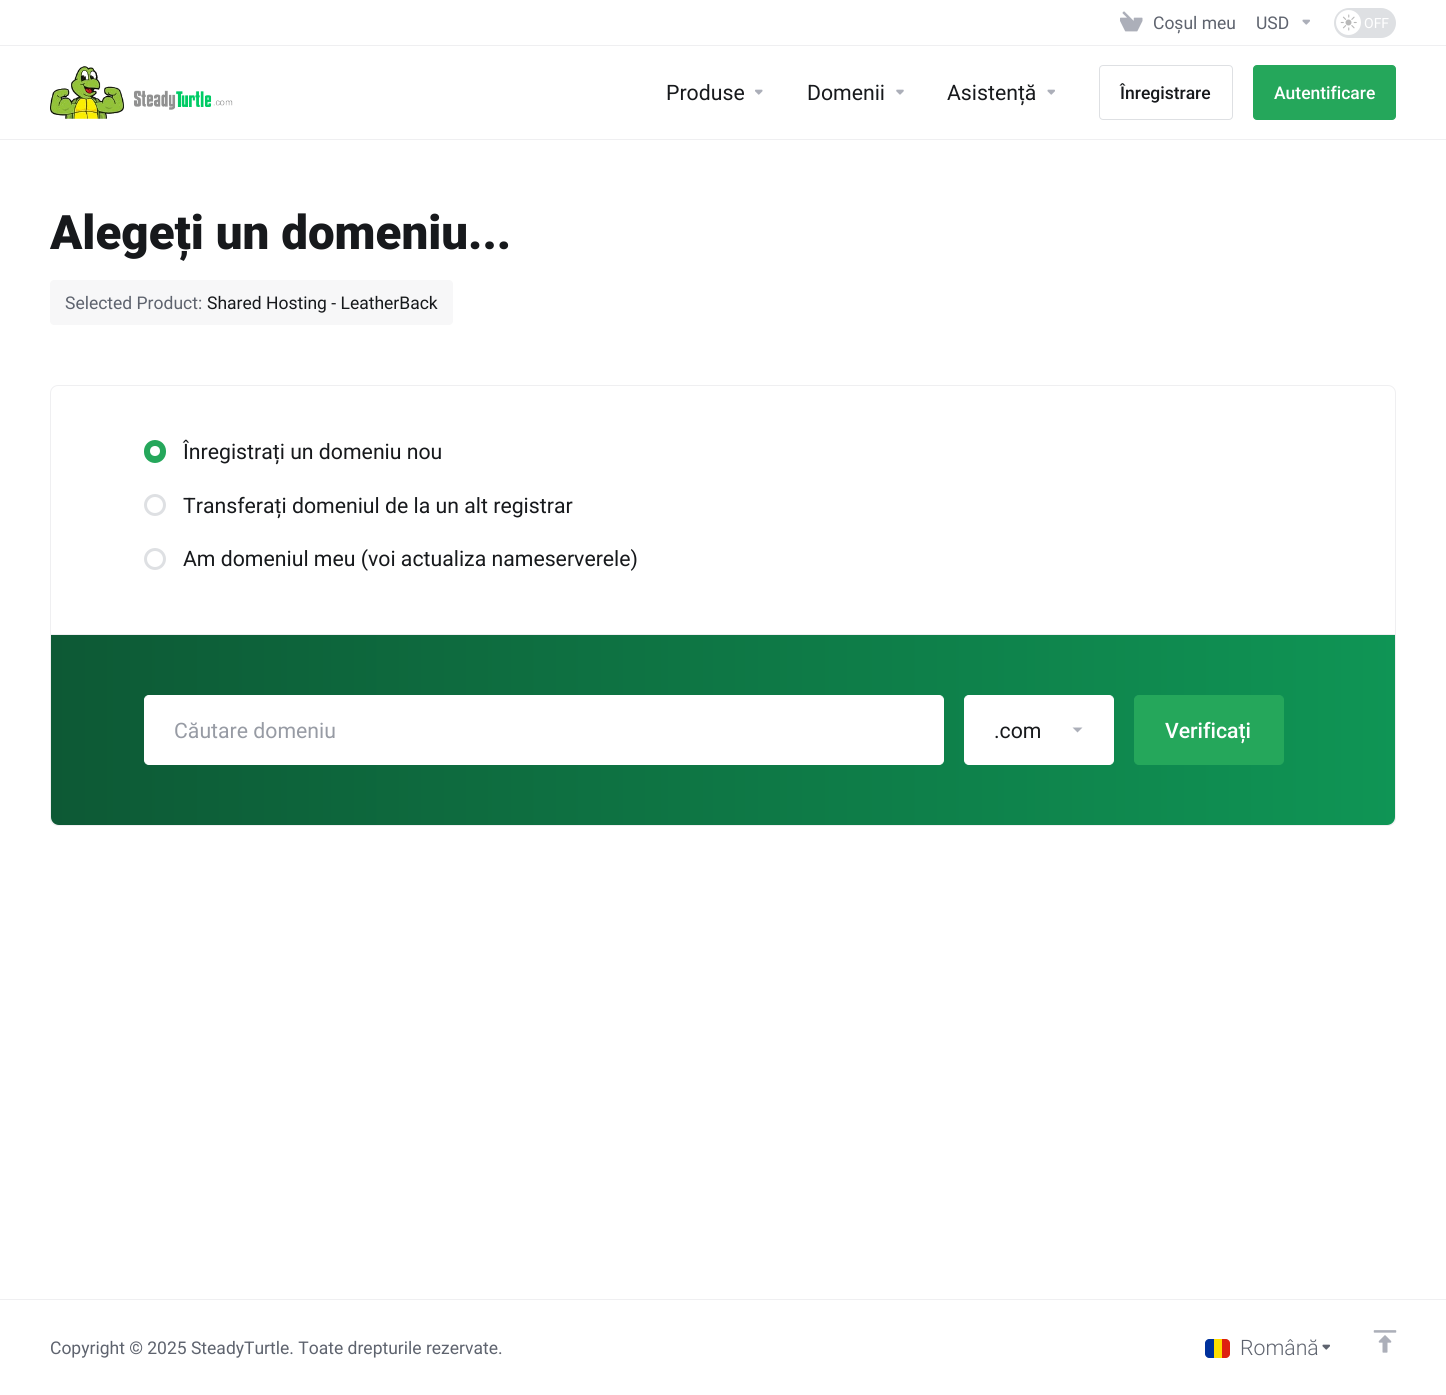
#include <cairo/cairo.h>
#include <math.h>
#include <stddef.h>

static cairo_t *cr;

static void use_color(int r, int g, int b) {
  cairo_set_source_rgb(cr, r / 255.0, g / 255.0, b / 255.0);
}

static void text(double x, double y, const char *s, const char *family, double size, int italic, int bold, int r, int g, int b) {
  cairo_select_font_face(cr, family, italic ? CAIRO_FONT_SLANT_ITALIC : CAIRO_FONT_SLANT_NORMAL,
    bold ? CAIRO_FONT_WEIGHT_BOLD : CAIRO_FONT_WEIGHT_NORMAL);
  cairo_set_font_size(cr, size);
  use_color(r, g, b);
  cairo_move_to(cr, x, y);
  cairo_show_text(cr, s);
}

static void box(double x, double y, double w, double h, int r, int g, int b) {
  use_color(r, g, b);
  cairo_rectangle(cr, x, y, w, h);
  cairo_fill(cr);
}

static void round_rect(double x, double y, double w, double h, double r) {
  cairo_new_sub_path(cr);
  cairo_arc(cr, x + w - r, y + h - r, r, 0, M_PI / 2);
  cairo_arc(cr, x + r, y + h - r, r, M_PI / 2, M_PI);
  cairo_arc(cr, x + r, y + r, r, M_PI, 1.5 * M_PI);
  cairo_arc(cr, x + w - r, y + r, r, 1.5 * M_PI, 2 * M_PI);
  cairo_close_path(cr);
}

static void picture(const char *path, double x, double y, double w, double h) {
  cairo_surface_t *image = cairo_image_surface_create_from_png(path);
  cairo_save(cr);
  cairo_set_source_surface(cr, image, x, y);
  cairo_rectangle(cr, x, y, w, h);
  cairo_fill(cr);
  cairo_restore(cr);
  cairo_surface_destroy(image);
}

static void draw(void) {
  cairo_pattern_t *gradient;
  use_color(255, 255, 255);
  cairo_paint(cr);
  box(0, 139, 1446, 1, 239, 239, 241);
  box(0, 45, 1446, 1, 239, 239, 241);
  picture("img_01.png", 1120, 11, 23, 21);
  picture("img_02.png", 1302, 19, 8, 6);
  use_color(222, 224, 227);
  round_rect(1334, 8, 62, 30, 15);
  cairo_fill(cr);
  use_color(255, 255, 255);
  cairo_arc(cr, 1348.5, 22.5, 12.5, 0, 2 * M_PI);
  cairo_fill(cr);
  picture("img_03.png", 1340, 14, 17, 17);
  picture("img_04.png", 50, 66, 183, 53);
  picture("img_05.png", 755, 89, 8, 6);
  picture("img_06.png", 896, 89, 8, 6);
  picture("img_02.png", 1047, 89, 8, 6);
  round_rect(1099.5, 65.5, 133, 54, 3.5);
  use_color(222, 224, 227);
  cairo_set_line_width(cr, 1);
  cairo_stroke(cr);
  use_color(37, 167, 91);
  round_rect(1253.5, 65.5, 142, 54, 3.5);
  cairo_fill_preserve(cr);
  cairo_stroke(cr);
  use_color(247, 247, 248);
  round_rect(50, 280, 403, 45, 4);
  cairo_fill(cr);
  round_rect(50.5, 385.5, 1345, 440, 7.5);
  use_color(239, 239, 241);
  cairo_stroke(cr);
  use_color(37, 167, 91);
  round_rect(145.5, 441.5, 19, 20, 9.5);
  cairo_fill_preserve(cr);
  cairo_set_line_width(cr, 3);
  cairo_stroke(cr);
  use_color(255, 255, 255);
  cairo_arc(cr, 155, 451, 5, 0, 2 * M_PI);
  cairo_fill(cr);
  cairo_arc(cr, 155, 505, 9.5, 0, 2 * M_PI);
  use_color(222, 224, 227);
  cairo_stroke(cr);
  cairo_arc(cr, 155, 559, 9.5, 0, 2 * M_PI);
  cairo_stroke(cr);
  gradient = cairo_pattern_create_linear(51, 730, 1395, 730);
  cairo_pattern_add_color_stop_rgba(gradient, 0, 0.051, 0.349, 0.208, 1);
  cairo_pattern_add_color_stop_rgba(gradient, 1, 0.059, 0.584, 0.333, 1);
  cairo_set_source(cr, gradient);
  cairo_pattern_destroy(gradient);
  cairo_new_path(cr);
  cairo_move_to(cr, 51, 634);
  cairo_line_to(cr, 1395, 634);
  cairo_line_to(cr, 1395, 817);
  cairo_curve_to(cr, 1395, 821.5, 1391.5, 825, 1387, 825);
  cairo_line_to(cr, 59, 825);
  cairo_curve_to(cr, 54.5, 825, 51, 821.5, 51, 817);
  cairo_close_path(cr);
  cairo_fill(cr);
  box(51, 634, 1344, 1, 239, 239, 241);
  use_color(255, 255, 255);
  round_rect(144.5, 695.5, 799, 69, 4.5);
  cairo_fill_preserve(cr);
  cairo_set_line_width(cr, 1);
  cairo_stroke(cr);
  round_rect(964.5, 695.5, 149, 69, 4.5);
  cairo_fill_preserve(cr);
  cairo_stroke(cr);
  use_color(172, 175, 185);
  cairo_new_path(cr);
  cairo_move_to(cr, 1072.5, 727.5);
  cairo_line_to(cr, 1082.5, 727.5);
  cairo_line_to(cr, 1077.5, 732.5);
  cairo_close_path(cr);
  cairo_fill(cr);
  use_color(37, 167, 91);
  round_rect(1134.5, 695.5, 149, 69, 4.5);
  cairo_fill_preserve(cr);
  cairo_stroke(cr);
  box(0, 1299, 1446, 1, 239, 239, 241);
  use_color(0, 49, 156);
  cairo_new_path(cr);
  cairo_move_to(cr, 1209, 1339);
  cairo_line_to(cr, 1214, 1339);
  cairo_line_to(cr, 1214, 1358);
  cairo_line_to(cr, 1209, 1358);
  cairo_curve_to(cr, 1207, 1358, 1205, 1356, 1205, 1354);
  cairo_line_to(cr, 1205, 1343);
  cairo_curve_to(cr, 1205, 1341, 1207, 1339, 1209, 1339);
  cairo_close_path(cr);
  cairo_fill(cr);
  box(1214, 1339, 8, 19, 255, 222, 0);
  use_color(222, 33, 16);
  cairo_new_path(cr);
  cairo_move_to(cr, 1222, 1339);
  cairo_line_to(cr, 1226, 1339);
  cairo_curve_to(cr, 1228, 1339, 1230, 1341, 1230, 1343);
  cairo_line_to(cr, 1230, 1354);
  cairo_curve_to(cr, 1230, 1356, 1228, 1358, 1226, 1358);
  cairo_line_to(cr, 1222, 1358);
  cairo_close_path(cr);
  cairo_fill(cr);
  picture("img_07.png", 1322, 1344, 8, 6);
  picture("img_08.png", 1373, 1330, 24, 23);
  text(1153, 29, "Coșul meu", "Roboto", 17.5, 0, 0, 94, 99, 110);
  text(1256, 29, "USD", "Roboto", 17.5, 0, 0, 94, 99, 110);
  text(1364, 28, "OFF", "Roboto", 14, 0, 0, 255, 255, 255);
  text(666, 100, "Produse", "Roboto", 21.25, 0, 0, 23, 25, 28);
  text(807, 100, "Domenii", "Roboto", 21.25, 0, 0, 23, 25, 28);
  text(947, 100, "Asistență", "Roboto", 21.25, 0, 0, 23, 25, 28);
  text(1120, 99, "Înregistrare", "Roboto Medium", 17.5, 0, 0, 23, 25, 28);
  text(1274, 99, "Autentificare", "Roboto Medium", 17.5, 0, 0, 255, 255, 255);
  text(50, 249, "Alegeți un domeniu...", "Roboto Black", 47.5, 0, 0, 23, 25, 28);
  text(65, 309, "Selected Product:", "Roboto", 17.5, 0, 0, 94, 99, 110);
  text(207, 309, "Shared Hosting - LeatherBack", "Roboto", 17.5, 0, 0, 23, 25, 28);
  text(183, 459, "Înregistrați un domeniu nou", "Roboto", 21.25, 0, 0, 23, 25, 28);
  text(183, 513, "Transferați domeniul de la un alt registrar", "Roboto", 21.25, 0, 0, 23, 25, 28);
  text(183, 566, "Am domeniul meu (voi actualiza nameserverele)", "Roboto", 21.25, 0, 0, 23, 25, 28);
  text(174, 738, "Căutare domeniu", "Roboto", 21.25, 0, 0, 151, 155, 164);
  text(994, 738, ".com", "Roboto", 21.25, 0, 0, 23, 25, 28);
  text(1165, 738, "Verificați", "Roboto Medium", 21.25, 0, 0, 255, 255, 255);
  text(50, 1354, "Copyright © 2025 SteadyTurtle. Toate drepturile rezervate.", "Roboto", 17.5, 0, 0, 94, 99, 110);
  text(1240, 1355, "Română", "Roboto Light", 21.25, 0, 0, 94, 99, 110);
}

int main(void) {
  cairo_surface_t *surface = cairo_image_surface_create(CAIRO_FORMAT_RGB24, 1446, 1395);
  cr = cairo_create(surface);
  cairo_font_options_t *options = cairo_font_options_create();
  cairo_font_options_set_hint_metrics(options, CAIRO_HINT_METRICS_OFF);
  cairo_font_options_set_hint_style(options, CAIRO_HINT_STYLE_NONE);
  cairo_set_font_options(cr, options);
  cairo_set_miter_limit(cr, 4);
  draw();
  cairo_surface_write_to_png(surface, "out.png");
  cairo_font_options_destroy(options);
  cairo_destroy(cr);
  cairo_surface_destroy(surface);
  return 0;
}
